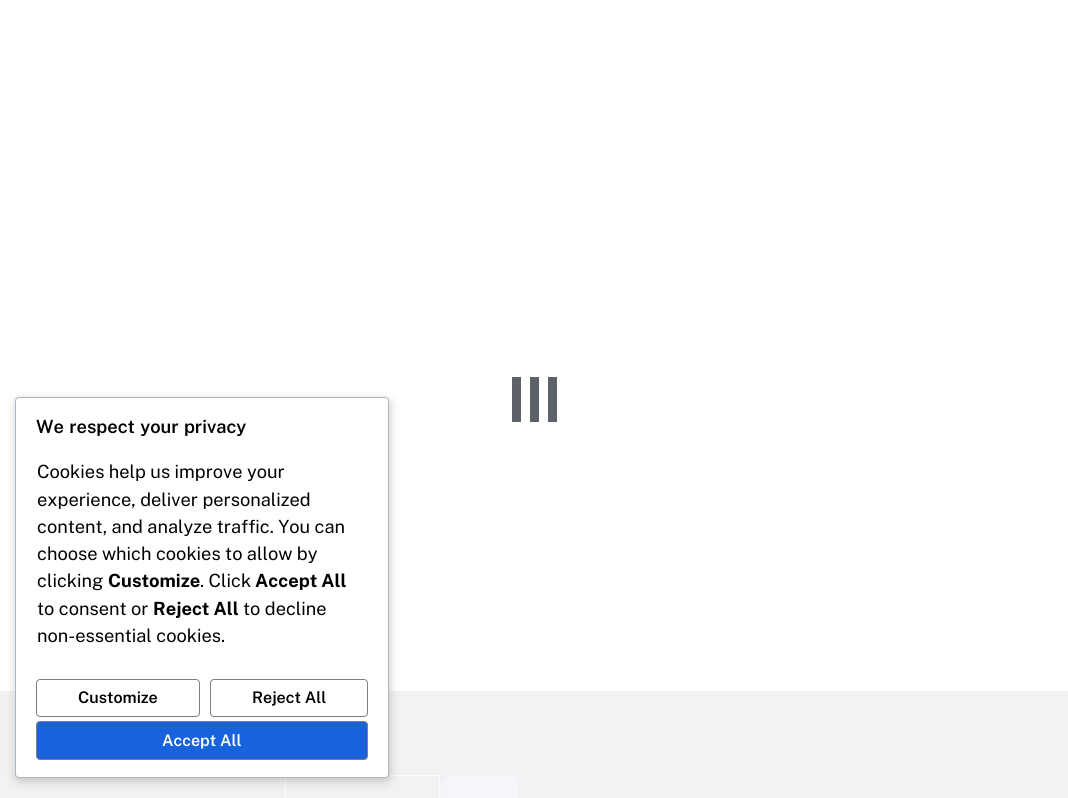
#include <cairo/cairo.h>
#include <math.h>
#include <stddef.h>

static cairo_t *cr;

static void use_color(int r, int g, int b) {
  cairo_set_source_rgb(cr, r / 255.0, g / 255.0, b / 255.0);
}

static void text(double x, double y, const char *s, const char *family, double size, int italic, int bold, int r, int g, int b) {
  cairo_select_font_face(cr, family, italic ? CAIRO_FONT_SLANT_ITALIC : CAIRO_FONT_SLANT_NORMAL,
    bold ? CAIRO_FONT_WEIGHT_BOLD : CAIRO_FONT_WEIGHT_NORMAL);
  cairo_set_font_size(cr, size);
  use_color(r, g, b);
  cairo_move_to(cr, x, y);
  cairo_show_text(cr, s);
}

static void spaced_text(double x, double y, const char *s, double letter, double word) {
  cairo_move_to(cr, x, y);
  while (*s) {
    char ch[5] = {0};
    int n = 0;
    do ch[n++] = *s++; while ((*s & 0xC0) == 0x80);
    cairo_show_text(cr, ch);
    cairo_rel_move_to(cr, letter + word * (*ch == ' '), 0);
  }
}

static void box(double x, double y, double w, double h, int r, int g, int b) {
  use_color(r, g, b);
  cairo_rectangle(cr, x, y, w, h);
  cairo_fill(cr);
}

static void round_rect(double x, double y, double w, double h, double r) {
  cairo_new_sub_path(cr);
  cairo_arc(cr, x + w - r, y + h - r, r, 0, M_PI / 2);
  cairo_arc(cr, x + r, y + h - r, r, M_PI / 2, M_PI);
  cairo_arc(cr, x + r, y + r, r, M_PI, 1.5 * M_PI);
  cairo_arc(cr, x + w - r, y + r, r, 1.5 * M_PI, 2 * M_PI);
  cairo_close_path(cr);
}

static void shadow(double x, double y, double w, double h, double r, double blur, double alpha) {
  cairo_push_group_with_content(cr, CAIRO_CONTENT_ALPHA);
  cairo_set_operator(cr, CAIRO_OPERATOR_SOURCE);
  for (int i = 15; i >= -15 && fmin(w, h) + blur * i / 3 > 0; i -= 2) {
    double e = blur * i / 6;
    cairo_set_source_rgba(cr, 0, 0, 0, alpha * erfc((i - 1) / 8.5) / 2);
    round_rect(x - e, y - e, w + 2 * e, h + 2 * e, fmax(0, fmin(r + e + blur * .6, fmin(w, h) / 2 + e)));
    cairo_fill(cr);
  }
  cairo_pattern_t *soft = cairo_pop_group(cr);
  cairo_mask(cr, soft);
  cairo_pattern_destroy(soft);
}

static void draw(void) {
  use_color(255, 255, 255);
  cairo_paint(cr);
  box(548, 377, 9, 45, 93, 97, 104);
  box(530, 377, 9, 45, 93, 97, 104);
  box(512, 377, 9, 45, 93, 97, 104);
  box(0, 691, 1068, 107, 242, 242, 242);
  box(389, 760, 130, 1, 245, 245, 245);
  cairo_rectangle(cr, 285.5, 775.5, 154, 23);
  use_color(252, 252, 252);
  cairo_set_line_width(cr, 1);
  cairo_stroke(cr);
  use_color(245, 245, 252);
  cairo_new_path(cr);
  cairo_move_to(cr, 456, 775);
  cairo_line_to(cr, 511, 775);
  cairo_curve_to(cr, 515.5, 775, 519, 778.5, 519, 783);
  cairo_line_to(cr, 519, 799);
  cairo_curve_to(cr, 519, 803.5, 515.5, 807, 511, 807);
  cairo_line_to(cr, 456, 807);
  cairo_curve_to(cr, 447, 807, 440, 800, 440, 791);
  cairo_curve_to(cr, 440, 782, 447, 775, 456, 775);
  cairo_close_path(cr);
  cairo_fill(cr);
  use_color(0, 0, 0);
  shadow(16, 400, 374, 381, 4, 5, 0.2);
  use_color(255, 255, 255);
  round_rect(15.5, 397.5, 373, 380, 3.5);
  cairo_fill_preserve(cr);
  use_color(171, 184, 195);
  cairo_stroke(cr);
  round_rect(36.5, 679.5, 163, 37, 3.5);
  use_color(128, 128, 128);
  cairo_stroke(cr);
  round_rect(210.5, 679.5, 157, 37, 3.5);
  cairo_stroke(cr);
  use_color(24, 99, 220);
  round_rect(36.5, 721.5, 331, 38, 3.5);
  cairo_fill_preserve(cr);
  use_color(128, 128, 128);
  cairo_stroke(cr);
  cairo_select_font_face(cr, "Public Sans SemiBold", CAIRO_FONT_SLANT_NORMAL, CAIRO_FONT_WEIGHT_NORMAL);
  cairo_set_font_size(cr, 18.2);
  use_color(0, 0, 0);
  spaced_text(36, 433, "We respect your privacy", 0, 1);
  text(37, 478, "Cookies help us improve your", "Public Sans", 18.2, 0, 0, 0, 0, 0);
  text(37, 506, "experience, deliver personalized", "Public Sans", 18.2, 0, 0, 0, 0, 0);
  text(37, 533, "content, and analyze traffic. You can", "Public Sans", 18.2, 0, 0, 0, 0, 0);
  text(37, 560, "choose which cookies to allow by", "Public Sans", 18.2, 0, 0, 0, 0, 0);
  text(37, 587, "clicking", "Public Sans", 18.2, 0, 0, 0, 0, 0);
  text(108, 587, "Customize", "Public Sans", 18.2, 0, 1, 0, 0, 0);
  text(200, 587, ". Click", "Public Sans", 18.2, 0, 0, 0, 0, 0);
  text(255, 587, "Accept All", "Public Sans", 18.2, 0, 1, 0, 0, 0);
  text(37, 615, "to consent or", "Public Sans", 18.2, 0, 0, 0, 0, 0);
  text(153, 615, "Reject All", "Public Sans", 18.2, 0, 1, 0, 0, 0);
  text(243, 615, "to decline", "Public Sans", 18.2, 0, 0, 0, 0, 0);
  text(37, 642, "non-essential cookies.", "Public Sans", 18.2, 0, 0, 0, 0, 0);
  text(78, 703, "Customize", "Public Sans SemiBold", 16, 0, 0, 0, 0, 0);
  text(252, 703, "Reject All", "Public Sans SemiBold", 16, 0, 0, 0, 0, 0);
  text(162, 746, "Accept All", "Public Sans SemiBold", 16, 0, 0, 255, 255, 255);
}

int main(void) {
  cairo_surface_t *surface = cairo_image_surface_create(CAIRO_FORMAT_RGB24, 1068, 798);
  cr = cairo_create(surface);
  cairo_font_options_t *options = cairo_font_options_create();
  cairo_font_options_set_hint_metrics(options, CAIRO_HINT_METRICS_OFF);
  cairo_font_options_set_hint_style(options, CAIRO_HINT_STYLE_NONE);
  cairo_set_font_options(cr, options);
  cairo_set_miter_limit(cr, 4);
  draw();
  cairo_surface_write_to_png(surface, "out.png");
  cairo_font_options_destroy(options);
  cairo_destroy(cr);
  cairo_surface_destroy(surface);
  return 0;
}
